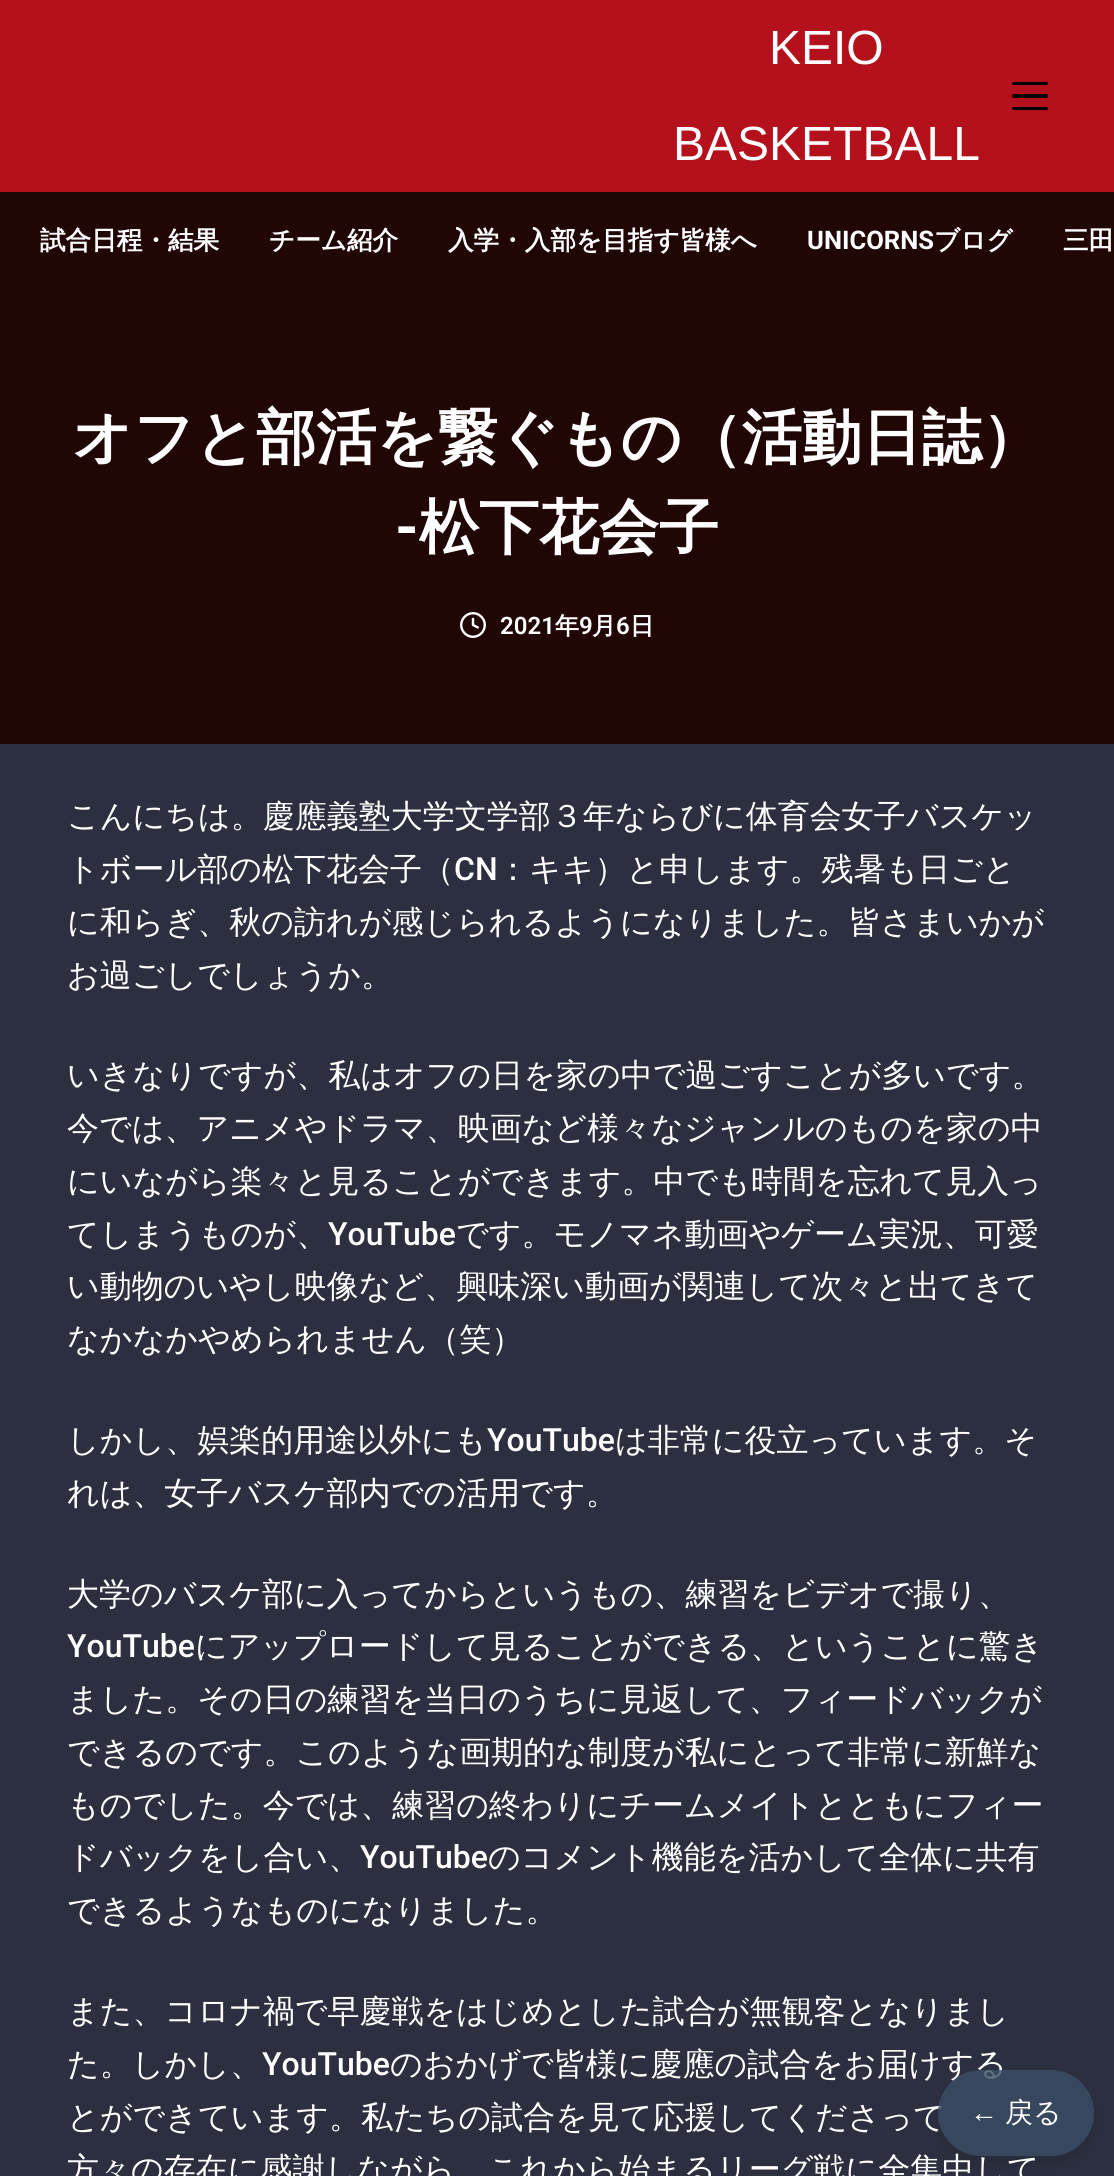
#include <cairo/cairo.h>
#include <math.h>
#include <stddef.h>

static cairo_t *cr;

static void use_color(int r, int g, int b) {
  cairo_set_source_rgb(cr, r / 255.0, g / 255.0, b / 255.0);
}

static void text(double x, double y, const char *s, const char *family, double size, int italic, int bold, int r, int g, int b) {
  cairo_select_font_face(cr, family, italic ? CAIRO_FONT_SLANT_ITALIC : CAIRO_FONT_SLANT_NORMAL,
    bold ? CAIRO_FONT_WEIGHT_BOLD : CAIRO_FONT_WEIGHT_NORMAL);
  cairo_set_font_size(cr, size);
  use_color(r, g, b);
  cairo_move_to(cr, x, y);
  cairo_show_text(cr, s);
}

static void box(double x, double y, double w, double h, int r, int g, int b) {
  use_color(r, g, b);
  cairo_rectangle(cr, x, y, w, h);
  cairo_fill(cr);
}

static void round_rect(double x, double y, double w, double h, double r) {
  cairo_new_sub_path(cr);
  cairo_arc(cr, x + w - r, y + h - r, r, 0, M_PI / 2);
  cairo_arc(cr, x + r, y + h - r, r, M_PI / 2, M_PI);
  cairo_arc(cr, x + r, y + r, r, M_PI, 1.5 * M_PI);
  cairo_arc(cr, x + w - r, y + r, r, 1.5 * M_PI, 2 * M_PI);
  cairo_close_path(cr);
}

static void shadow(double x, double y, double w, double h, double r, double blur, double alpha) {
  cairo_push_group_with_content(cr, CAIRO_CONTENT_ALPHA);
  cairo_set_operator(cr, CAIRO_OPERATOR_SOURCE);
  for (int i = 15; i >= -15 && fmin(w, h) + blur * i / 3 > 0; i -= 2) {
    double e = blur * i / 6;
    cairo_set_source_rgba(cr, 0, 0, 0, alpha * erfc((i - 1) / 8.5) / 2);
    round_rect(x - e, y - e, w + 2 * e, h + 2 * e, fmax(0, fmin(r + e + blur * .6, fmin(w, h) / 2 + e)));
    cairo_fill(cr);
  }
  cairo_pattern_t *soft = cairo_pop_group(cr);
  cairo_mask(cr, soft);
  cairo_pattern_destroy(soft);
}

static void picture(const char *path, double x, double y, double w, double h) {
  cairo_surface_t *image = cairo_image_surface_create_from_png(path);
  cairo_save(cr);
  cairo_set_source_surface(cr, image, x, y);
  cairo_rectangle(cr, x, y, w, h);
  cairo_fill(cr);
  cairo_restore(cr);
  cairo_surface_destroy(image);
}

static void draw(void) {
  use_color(44, 47, 63);
  cairo_paint(cr);
  box(0, 0, 1114, 192, 181, 17, 29);
  use_color(0, 0, 0);
  round_rect(1012, 82, 36, 3, 1.5);
  cairo_fill(cr);
  round_rect(1012, 94, 36, 4, 2);
  cairo_fill(cr);
  round_rect(1012, 107, 36, 3, 1.5);
  cairo_fill(cr);
  box(0, 192, 1114, 552, 33, 6, 6);
  picture("img_01.png", 460, 612, 26, 26);
  cairo_save(cr);
  cairo_set_fill_rule(cr, CAIRO_FILL_RULE_EVEN_ODD);
  cairo_new_path(cr);
  cairo_move_to(cr, 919, 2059);
  cairo_line_to(cr, 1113, 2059);
  cairo_line_to(cr, 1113, 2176);
  cairo_line_to(cr, 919, 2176);
  cairo_close_path(cr);
  cairo_move_to(cr, 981, 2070);
  cairo_line_to(cr, 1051, 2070);
  cairo_curve_to(cr, 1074.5, 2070, 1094, 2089.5, 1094, 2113);
  cairo_curve_to(cr, 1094, 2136.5, 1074.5, 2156, 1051, 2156);
  cairo_line_to(cr, 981, 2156);
  cairo_curve_to(cr, 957.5, 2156, 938, 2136.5, 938, 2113);
  cairo_curve_to(cr, 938, 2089.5, 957.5, 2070, 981, 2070);
  cairo_close_path(cr);
  cairo_clip(cr);
  use_color(0, 0, 0);
  shadow(938, 2078, 156, 86, 43, 6, 0.1);
  cairo_restore(cr);
  text(769, 64, "KEIO", "Liberation Sans", 48, 0, 0, 255, 255, 255);
  text(673, 160, "BASKETBALL", "Liberation Sans", 48, 0, 0, 255, 255, 255);
  text(40, 249, "試合日程・結果", "WenQuanYi Zen Hei", 25.6, 0, 1, 255, 255, 255);
  text(269, 249, "チーム紹介", "WenQuanYi Zen Hei", 25.6, 0, 1, 255, 255, 255);
  text(448, 249, "入学・入部を目指す皆様へ", "WenQuanYi Zen Hei", 25.6, 0, 1, 255, 255, 255);
  text(807, 249, "UNICORNS", "Roboto", 25.6, 0, 1, 255, 255, 255);
  text(934, 249, "ブログ", "WenQuanYi Zen Hei", 25.6, 0, 1, 255, 255, 255);
  text(1063, 249, "三田", "WenQuanYi Zen Hei", 25.6, 0, 1, 255, 255, 255);
  text(72, 458, "オフと部活を繋ぐもの（活動日誌）", "WenQuanYi Zen Hei", 60, 0, 1, 255, 255, 255);
  text(395, 548, "-", "Roboto", 60, 0, 1, 255, 255, 255);
  text(419, 548, "松下花会子", "WenQuanYi Zen Hei", 60, 0, 1, 255, 255, 255);
  text(500, 634, "2021", "Roboto SemiBold", 24, 0, 0, 255, 255, 255);
  text(555, 634, "年", "WenQuanYi Zen Hei", 24, 0, 1, 255, 255, 255);
  text(579, 634, "9", "Roboto SemiBold", 24, 0, 0, 255, 255, 255);
  text(592, 634, "月", "WenQuanYi Zen Hei", 24, 0, 1, 255, 255, 255);
  text(616, 634, "6", "Roboto SemiBold", 24, 0, 0, 255, 255, 255);
  text(630, 634, "日", "WenQuanYi Zen Hei", 24, 0, 1, 255, 255, 255);
  text(67, 827, "こんにちは。慶應義塾大学文学部３年ならびに体育会女子バスケッ", "WenQuanYi Zen Hei Medium", 32, 0, 0, 255, 255, 255);
  text(67, 880, "トボール部の松下花会子（", "WenQuanYi Zen Hei Medium", 32, 0, 0, 255, 255, 255);
  text(454, 880, "CN", "Roboto Medium", 32, 0, 0, 255, 255, 255);
  text(497, 880, "：キキ）と申します。残暑も日ごと", "WenQuanYi Zen Hei Medium", 32, 0, 0, 255, 255, 255);
  text(67, 933, "に和らぎ、秋の訪れが感じられるようになりました。皆さまいかが", "WenQuanYi Zen Hei Medium", 32, 0, 0, 255, 255, 255);
  text(67, 986, "お過ごしでしょうか。", "WenQuanYi Zen Hei Medium", 32, 0, 0, 255, 255, 255);
  text(67, 1086, "いきなりですが、私はオフの日を家の中で過ごすことが多いです。", "WenQuanYi Zen Hei Medium", 32, 0, 0, 255, 255, 255);
  text(67, 1139, "今では、アニメやドラマ、映画など様々なジャンルのものを家の中", "WenQuanYi Zen Hei Medium", 32, 0, 0, 255, 255, 255);
  text(67, 1192, "にいながら楽々と見ることができます。中でも時間を忘れて見入っ", "WenQuanYi Zen Hei Medium", 32, 0, 0, 255, 255, 255);
  text(67, 1245, "てしまうものが、", "WenQuanYi Zen Hei Medium", 32, 0, 0, 255, 255, 255);
  text(328, 1245, "YouTube", "Roboto Medium", 32, 0, 0, 255, 255, 255);
  text(456, 1245, "です。モノマネ動画やゲーム実況、可愛", "WenQuanYi Zen Hei Medium", 32, 0, 0, 255, 255, 255);
  text(67, 1297, "い動物のいやし映像など、興味深い動画が関連して次々と出てきて", "WenQuanYi Zen Hei Medium", 32, 0, 0, 255, 255, 255);
  text(67, 1350, "なかなかやめられません（笑）", "WenQuanYi Zen Hei Medium", 32, 0, 0, 255, 255, 255);
  text(67, 1451, "しかし、娯楽的用途以外にも", "WenQuanYi Zen Hei Medium", 32, 0, 0, 255, 255, 255);
  text(487, 1451, "YouTube", "Roboto Medium", 32, 0, 0, 255, 255, 255);
  text(615, 1451, "は非常に役立っています。そ", "WenQuanYi Zen Hei Medium", 32, 0, 0, 255, 255, 255);
  text(67, 1504, "れは、女子バスケ部内での活用です。", "WenQuanYi Zen Hei Medium", 32, 0, 0, 255, 255, 255);
  text(67, 1605, "大学のバスケ部に入ってからというもの、練習をビデオで撮り、", "WenQuanYi Zen Hei Medium", 32, 0, 0, 255, 255, 255);
  text(67, 1657, "YouTube", "Roboto Medium", 32, 0, 0, 255, 255, 255);
  text(195, 1657, "にアップロードして見ることができる、ということに驚き", "WenQuanYi Zen Hei Medium", 32, 0, 0, 255, 255, 255);
  text(67, 1710, "ました。その日の練習を当日のうちに見返して、フィードバックが", "WenQuanYi Zen Hei Medium", 32, 0, 0, 255, 255, 255);
  text(67, 1763, "できるのです。このような画期的な制度が私にとって非常に新鮮な", "WenQuanYi Zen Hei Medium", 32, 0, 0, 255, 255, 255);
  text(67, 1816, "ものでした。今では、練習の終わりにチームメイトとともにフィー", "WenQuanYi Zen Hei Medium", 32, 0, 0, 255, 255, 255);
  text(67, 1868, "ドバックをし合い、", "WenQuanYi Zen Hei Medium", 32, 0, 0, 255, 255, 255);
  text(360, 1868, "YouTube", "Roboto Medium", 32, 0, 0, 255, 255, 255);
  text(488, 1868, "のコメント機能を活かして全体に共有", "WenQuanYi Zen Hei Medium", 32, 0, 0, 255, 255, 255);
  text(67, 1921, "できるようなものになりました。", "WenQuanYi Zen Hei Medium", 32, 0, 0, 255, 255, 255);
  text(67, 2022, "また、コロナ禍で早慶戦をはじめとした試合が無観客となりまし", "WenQuanYi Zen Hei Medium", 32, 0, 0, 255, 255, 255);
  text(67, 2075, "た。しかし、", "WenQuanYi Zen Hei Medium", 32, 0, 0, 255, 255, 255);
  text(262, 2075, "YouTube", "Roboto Medium", 32, 0, 0, 255, 255, 255);
  text(390, 2075, "のおかげで皆様に慶應の試合をお届けする", "WenQuanYi Zen Hei Medium", 32, 0, 0, 255, 255, 255);
  text(67, 2128, "とができています。私たちの試合を見て応援してくださって", "WenQuanYi Zen Hei Medium", 32, 0, 0, 255, 255, 255);
  text(67, 2180, "方々の存在に感謝しながら、これから始まるリーグ戦に全集中して", "WenQuanYi Zen Hei Medium", 32, 0, 0, 255, 255, 255);
  cairo_set_source_rgba(cr, 0.227, 0.31, 0.4, 0.8);
  round_rect(938, 2070, 156, 86, 43);
  cairo_fill(cr);
  text(970, 2122, "←", "Liberation Sans", 28, 0, 0, 255, 255, 255);
  text(1005, 2122, "戻る", "WenQuanYi Zen Hei Medium", 28, 0, 0, 255, 255, 255);
}

int main(void) {
  cairo_surface_t *surface = cairo_image_surface_create(CAIRO_FORMAT_RGB24, 1114, 2176);
  cr = cairo_create(surface);
  cairo_font_options_t *options = cairo_font_options_create();
  cairo_font_options_set_hint_metrics(options, CAIRO_HINT_METRICS_OFF);
  cairo_font_options_set_hint_style(options, CAIRO_HINT_STYLE_NONE);
  cairo_set_font_options(cr, options);
  cairo_set_miter_limit(cr, 4);
  draw();
  cairo_surface_write_to_png(surface, "out.png");
  cairo_font_options_destroy(options);
  cairo_destroy(cr);
  cairo_surface_destroy(surface);
  return 0;
}
